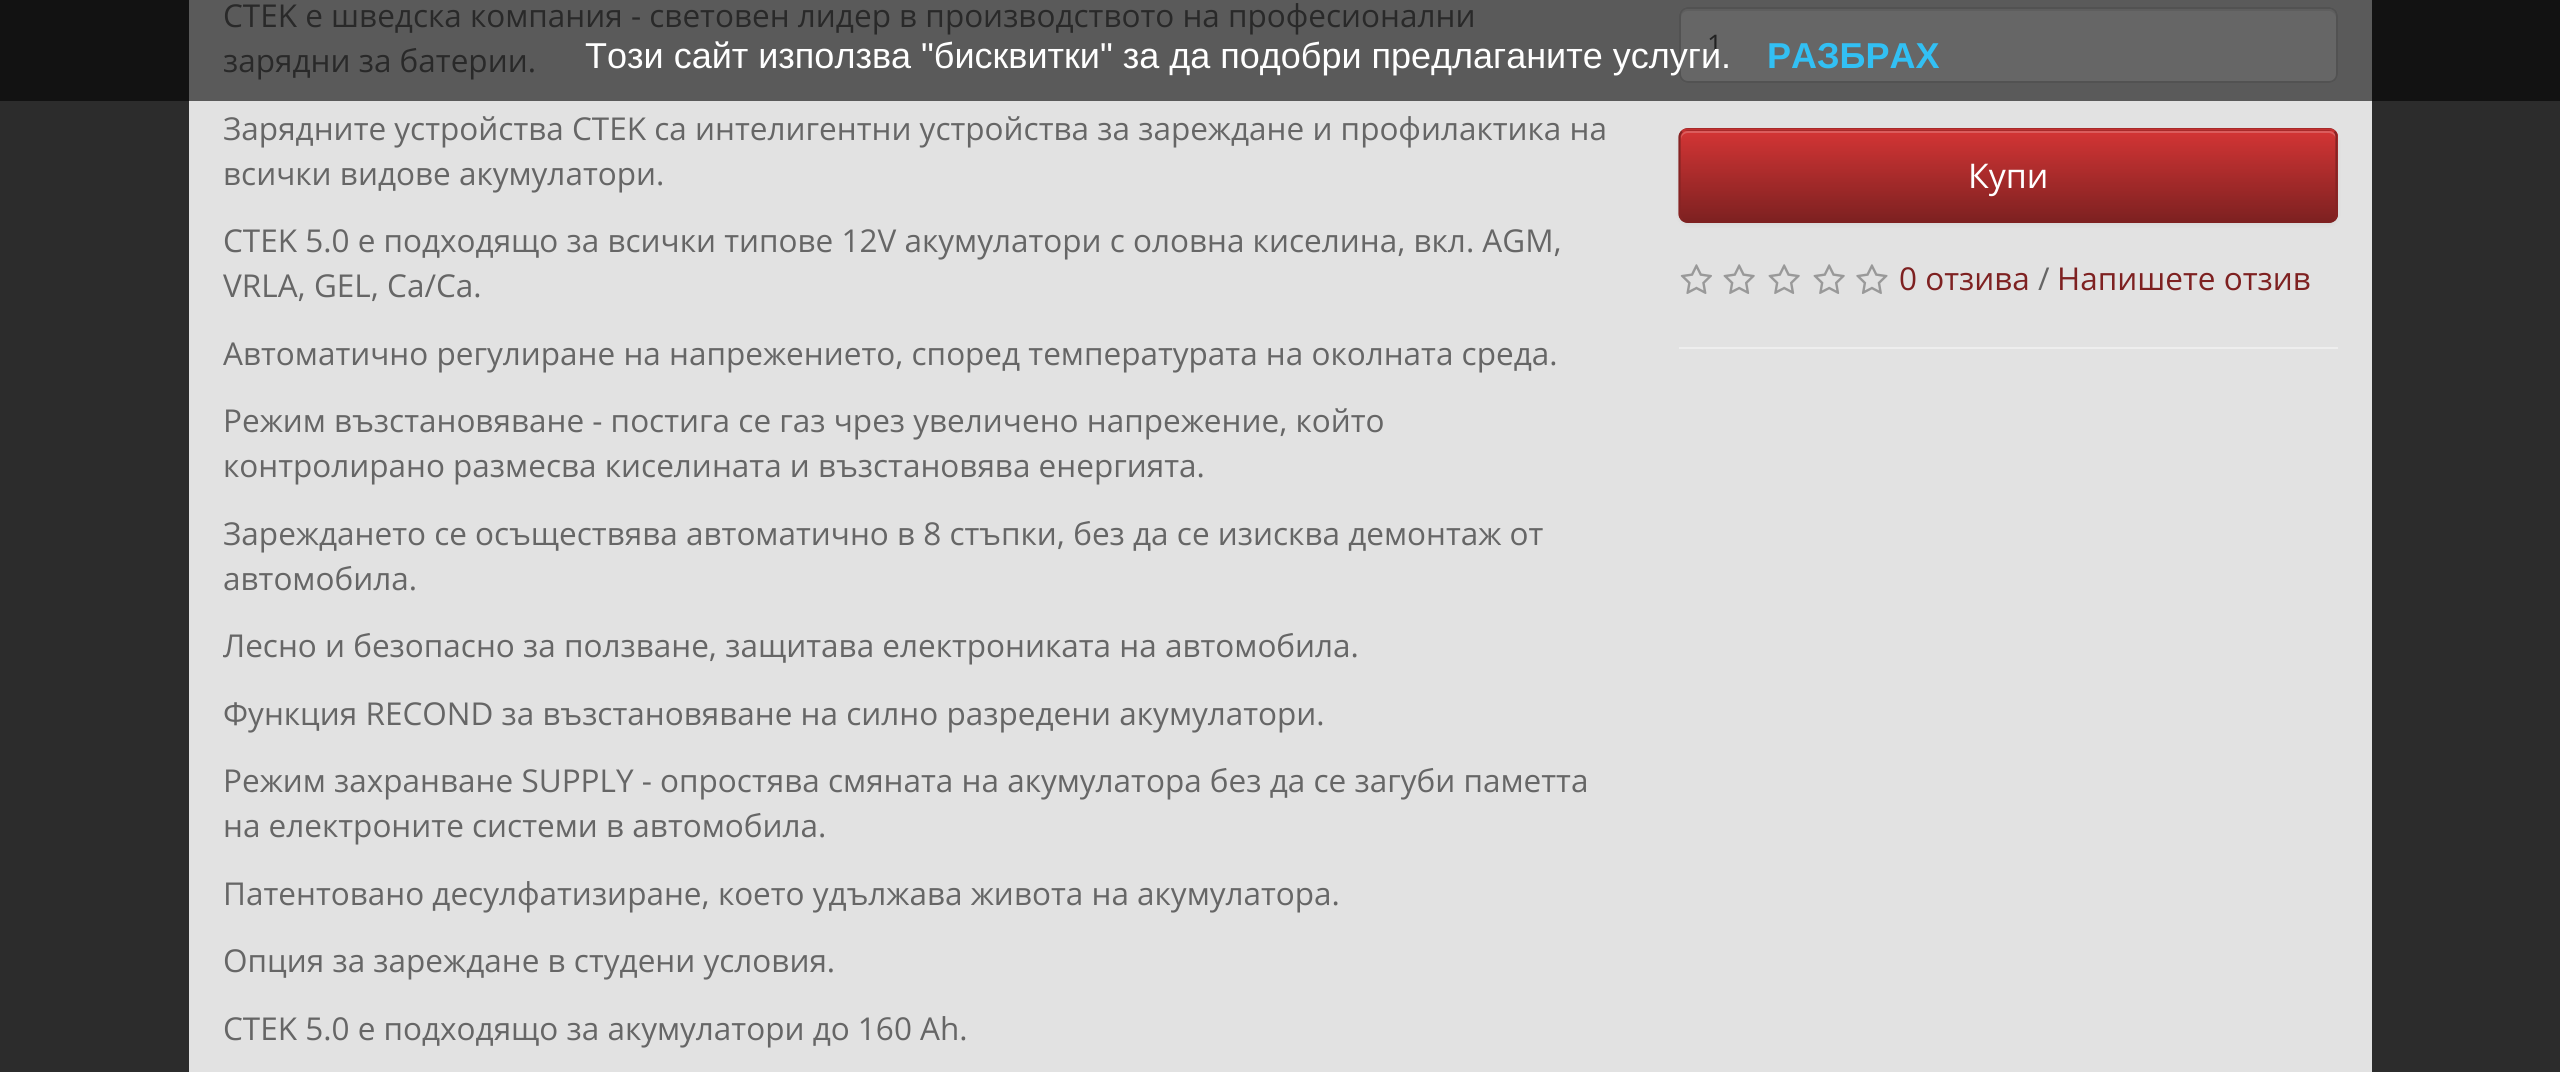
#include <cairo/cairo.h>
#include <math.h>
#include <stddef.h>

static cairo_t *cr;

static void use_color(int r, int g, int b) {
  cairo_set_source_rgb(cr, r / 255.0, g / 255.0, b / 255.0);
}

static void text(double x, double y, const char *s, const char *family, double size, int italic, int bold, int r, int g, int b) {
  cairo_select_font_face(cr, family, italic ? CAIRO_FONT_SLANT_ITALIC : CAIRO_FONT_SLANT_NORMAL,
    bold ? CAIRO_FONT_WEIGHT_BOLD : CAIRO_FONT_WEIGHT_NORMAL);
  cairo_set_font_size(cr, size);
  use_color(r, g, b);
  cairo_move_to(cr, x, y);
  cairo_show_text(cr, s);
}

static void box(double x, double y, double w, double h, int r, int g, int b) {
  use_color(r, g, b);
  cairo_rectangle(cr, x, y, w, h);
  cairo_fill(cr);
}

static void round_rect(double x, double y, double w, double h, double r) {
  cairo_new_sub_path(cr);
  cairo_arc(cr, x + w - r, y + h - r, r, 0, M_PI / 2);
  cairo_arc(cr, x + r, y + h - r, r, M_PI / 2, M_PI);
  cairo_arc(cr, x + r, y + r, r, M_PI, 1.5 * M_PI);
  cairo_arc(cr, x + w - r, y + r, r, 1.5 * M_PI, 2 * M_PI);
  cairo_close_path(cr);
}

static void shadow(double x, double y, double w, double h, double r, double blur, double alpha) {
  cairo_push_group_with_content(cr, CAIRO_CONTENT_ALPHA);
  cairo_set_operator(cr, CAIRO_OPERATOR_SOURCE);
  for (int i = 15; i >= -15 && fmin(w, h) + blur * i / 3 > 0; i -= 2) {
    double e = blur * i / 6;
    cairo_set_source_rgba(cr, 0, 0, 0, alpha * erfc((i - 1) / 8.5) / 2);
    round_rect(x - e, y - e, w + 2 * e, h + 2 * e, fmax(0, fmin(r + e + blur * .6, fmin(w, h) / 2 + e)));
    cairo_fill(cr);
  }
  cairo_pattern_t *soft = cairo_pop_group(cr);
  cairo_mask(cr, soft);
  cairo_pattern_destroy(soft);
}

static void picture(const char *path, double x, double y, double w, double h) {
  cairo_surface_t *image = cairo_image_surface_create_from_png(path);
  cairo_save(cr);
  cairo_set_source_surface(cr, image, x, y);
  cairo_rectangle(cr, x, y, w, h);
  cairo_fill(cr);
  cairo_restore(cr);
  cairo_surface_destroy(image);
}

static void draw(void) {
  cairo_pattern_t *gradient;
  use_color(44, 44, 44);
  cairo_paint(cr);
  box(0, 0, 2560, 101, 18, 18, 18);
  box(189, 101, 2183, 971, 226, 226, 226);
  box(189, 0, 2183, 101, 90, 90, 90);
  use_color(102, 102, 102);
  round_rect(1679, 7, 659, 76, 9);
  cairo_fill(cr);
  use_color(94, 94, 94);
  cairo_new_path(cr);
  cairo_move_to(cr, 1688, 11);
  cairo_line_to(cr, 2329, 11);
  cairo_curve_to(cr, 2332, 11, 2336, 14, 2336, 18);
  cairo_line_to(cr, 2336, 16);
  cairo_curve_to(cr, 2336, 12, 2333, 9, 2329, 9);
  cairo_line_to(cr, 1688, 9);
  cairo_curve_to(cr, 1684, 9, 1681, 12, 1681, 16);
  cairo_line_to(cr, 1681, 18);
  cairo_curve_to(cr, 1681, 14, 1684, 11, 1688, 11);
  cairo_close_path(cr);
  cairo_fill(cr);
  round_rect(1680, 8, 657, 74, 8);
  use_color(82, 82, 82);
  cairo_stroke(cr);
  use_color(0, 0, 0);
  shadow(1679, 131, 659, 94, 9, 2, 0.05);
  use_color(126, 33, 33);
  round_rect(1679, 128, 659, 95, 9);
  cairo_fill(cr);
  cairo_save(cr);
  round_rect(1679, 128, 659, 95, 9);
  cairo_clip(cr);
  gradient = cairo_pattern_create_linear(2008, 130, 2008, 221);
  cairo_pattern_add_color_stop_rgba(gradient, 0, 0.831, 0.208, 0.208, 1);
  cairo_pattern_add_color_stop_rgba(gradient, 1, 0.494, 0.129, 0.129, 1);
  cairo_set_source(cr, gradient);
  cairo_pattern_destroy(gradient);
  cairo_rectangle(cr, 1679, 131, 659, 90);
  cairo_fill(cr);
  cairo_restore(cr);
  cairo_set_source_rgba(cr, 1, 1, 1, 0.2);
  cairo_new_path(cr);
  cairo_move_to(cr, 1688, 133);
  cairo_line_to(cr, 2329, 133);
  cairo_curve_to(cr, 2332, 133, 2336, 136, 2336, 140);
  cairo_line_to(cr, 2336, 138);
  cairo_curve_to(cr, 2336, 134, 2333, 131, 2329, 131);
  cairo_line_to(cr, 1688, 131);
  cairo_curve_to(cr, 1684, 131, 1681, 134, 1681, 138);
  cairo_line_to(cr, 1681, 140);
  cairo_curve_to(cr, 1681, 136, 1684, 133, 1688, 133);
  cairo_close_path(cr);
  cairo_fill(cr);
  cairo_new_path(cr);
  cairo_move_to(cr, 1682, 131.5);
  cairo_curve_to(cr, 1683.5, 130, 1685.5, 129.5, 1687.5, 129.5);
  cairo_line_to(cr, 2329, 129.5);
  cairo_curve_to(cr, 2331, 129.5, 2333, 130, 2334.5, 131.5);
  use_color(195, 49, 49);
  cairo_set_line_width(cr, 2.2);
  cairo_stroke(cr);
  cairo_new_path(cr);
  cairo_move_to(cr, 2334.5, 131.5);
  cairo_curve_to(cr, 2336, 133, 2336.5, 135, 2336.5, 137);
  cairo_line_to(cr, 2336.5, 214);
  cairo_curve_to(cr, 2336.5, 216, 2336, 218, 2334.5, 219.5);
  use_color(134, 35, 35);
  cairo_stroke(cr);
  cairo_new_path(cr);
  cairo_move_to(cr, 2334.5, 219.5);
  cairo_curve_to(cr, 2333, 221, 2331, 221.5, 2329, 221.5);
  cairo_line_to(cr, 1687.5, 221.5);
  cairo_curve_to(cr, 1685.5, 221.5, 1683.5, 221, 1682, 219.5);
  use_color(126, 33, 33);
  cairo_stroke(cr);
  cairo_new_path(cr);
  cairo_move_to(cr, 1682, 219.5);
  cairo_curve_to(cr, 1680.5, 218, 1679.5, 216, 1679.5, 214);
  cairo_line_to(cr, 1679.5, 137);
  cairo_curve_to(cr, 1679.5, 135, 1680.5, 133, 1682, 131.5);
  use_color(134, 35, 35);
  cairo_stroke(cr);
  picture("img_01.png", 1680, 264, 32, 30);
  picture("img_02.png", 1723, 264, 32, 30);
  picture("img_02.png", 1768, 264, 32, 30);
  picture("img_02.png", 1813, 264, 32, 30);
  picture("img_03.png", 1856, 264, 32, 30);
  box(1679, 347, 659, 2, 238, 238, 238);
  text(223, 27, "CTEK e шведска компания - световен лидер в производството на професионални", "Open Sans", 31.5, 0, 0, 41, 41, 41);
  text(223, 72, "зарядни за батерии.", "Open Sans", 31.5, 0, 0, 41, 41, 41);
  text(223, 140, "Зарядните устройства CTEK са интелигентни устройства за зареждане и профилактика на", "Open Sans", 31.5, 0, 0, 102, 102, 102);
  text(223, 185, "всички видове акумулатори.", "Open Sans", 31.5, 0, 0, 102, 102, 102);
  text(223, 252, "CTEK 5.0 е подходящо за всички типове 12V акумулатори с оловна киселина, вкл. AGM,", "Open Sans", 31.5, 0, 0, 102, 102, 102);
  text(223, 297, "VRLA, GEL, Ca/Ca.", "Open Sans", 31.5, 0, 0, 102, 102, 102);
  text(223, 365, "Автоматично регулиране на напрежението, според температурата на околната среда.", "Open Sans", 31.5, 0, 0, 102, 102, 102);
  text(223, 432, "Режим възстановяване - постига се газ чрез увеличено напрежение, който", "Open Sans", 31.5, 0, 0, 102, 102, 102);
  text(223, 477, "контролирано размесва киселината и възстановява енергията.", "Open Sans", 31.5, 0, 0, 102, 102, 102);
  text(223, 545, "Зареждането се осъществява автоматично в 8 стъпки, без да се изисква демонтаж от", "Open Sans", 31.5, 0, 0, 102, 102, 102);
  text(223, 590, "автомобила.", "Open Sans", 31.5, 0, 0, 102, 102, 102);
  text(223, 657, "Лесно и безопасно за ползване, защитава електрониката на автомобила.", "Open Sans", 31.5, 0, 0, 102, 102, 102);
  text(223, 725, "Функция RECOND за възстановяване на силно разредени акумулатори.", "Open Sans", 31.5, 0, 0, 102, 102, 102);
  text(223, 792, "Режим захранване SUPPLY - опростява смяната на акумулатора без да се загуби паметта", "Open Sans", 31.5, 0, 0, 102, 102, 102);
  text(223, 837, "на електроните системи в автомобила.", "Open Sans", 31.5, 0, 0, 102, 102, 102);
  text(223, 905, "Патентовано десулфатизиране, което удължава живота на акумулатора.", "Open Sans", 31.5, 0, 0, 102, 102, 102);
  text(223, 972, "Опция за зареждане в студени условия.", "Open Sans", 31.5, 0, 0, 102, 102, 102);
  text(223, 1040, "CTEK 5.0 е подходящо за акумулатори до 160 Ah.", "Open Sans", 31.5, 0, 0, 102, 102, 102);
  text(1707, 54, "1", "Open Sans", 27, 0, 0, 34, 34, 34);
  text(1968, 188, "Купи", "Open Sans", 34, 0, 0, 255, 255, 255);
  text(1899, 290, "0 отзива", "Open Sans", 31.5, 0, 0, 126, 33, 33);
  text(2038, 290, "/", "Open Sans", 31.5, 0, 0, 102, 102, 102);
  text(2057, 290, "Напишете отзив", "Open Sans", 31.5, 0, 0, 126, 33, 33);
  text(585, 68, "Този сайт използва \"бисквитки\" за да подобри предлаганите услуги.", "Liberation Sans", 36, 0, 0, 255, 255, 255);
  text(1767, 68, "РАЗБРАХ", "Liberation Sans", 36, 0, 1, 50, 192, 244);
}

int main(void) {
  cairo_surface_t *surface = cairo_image_surface_create(CAIRO_FORMAT_RGB24, 2560, 1072);
  cr = cairo_create(surface);
  cairo_font_options_t *options = cairo_font_options_create();
  cairo_font_options_set_hint_metrics(options, CAIRO_HINT_METRICS_OFF);
  cairo_font_options_set_hint_style(options, CAIRO_HINT_STYLE_NONE);
  cairo_set_font_options(cr, options);
  cairo_set_miter_limit(cr, 4);
  draw();
  cairo_surface_write_to_png(surface, "out.png");
  cairo_font_options_destroy(options);
  cairo_destroy(cr);
  cairo_surface_destroy(surface);
  return 0;
}
